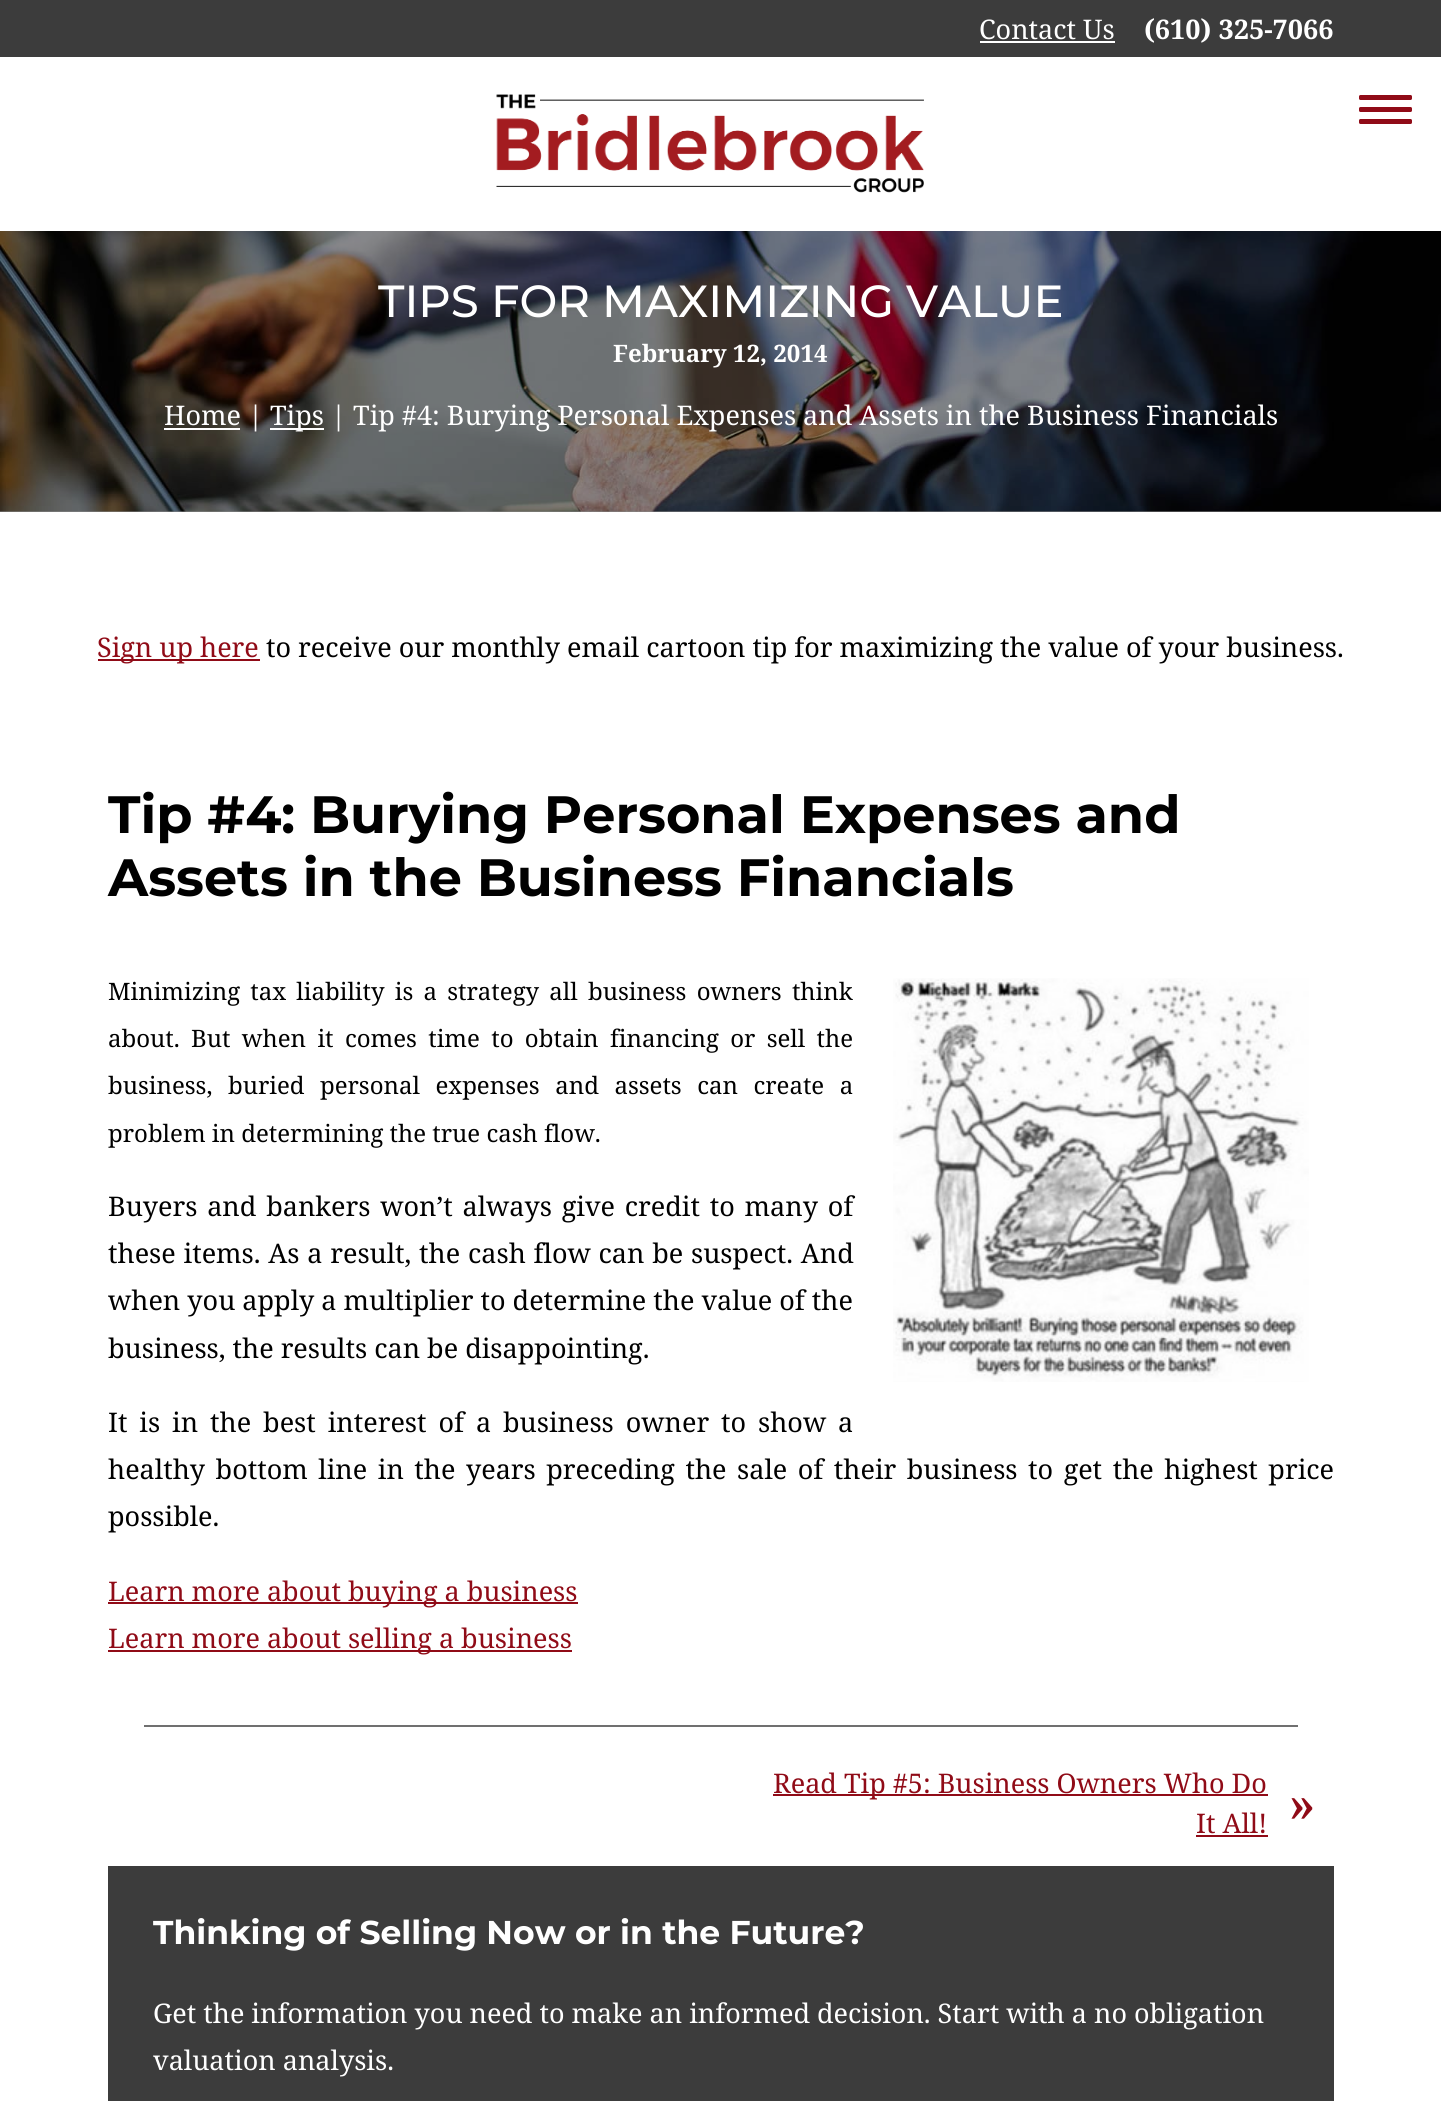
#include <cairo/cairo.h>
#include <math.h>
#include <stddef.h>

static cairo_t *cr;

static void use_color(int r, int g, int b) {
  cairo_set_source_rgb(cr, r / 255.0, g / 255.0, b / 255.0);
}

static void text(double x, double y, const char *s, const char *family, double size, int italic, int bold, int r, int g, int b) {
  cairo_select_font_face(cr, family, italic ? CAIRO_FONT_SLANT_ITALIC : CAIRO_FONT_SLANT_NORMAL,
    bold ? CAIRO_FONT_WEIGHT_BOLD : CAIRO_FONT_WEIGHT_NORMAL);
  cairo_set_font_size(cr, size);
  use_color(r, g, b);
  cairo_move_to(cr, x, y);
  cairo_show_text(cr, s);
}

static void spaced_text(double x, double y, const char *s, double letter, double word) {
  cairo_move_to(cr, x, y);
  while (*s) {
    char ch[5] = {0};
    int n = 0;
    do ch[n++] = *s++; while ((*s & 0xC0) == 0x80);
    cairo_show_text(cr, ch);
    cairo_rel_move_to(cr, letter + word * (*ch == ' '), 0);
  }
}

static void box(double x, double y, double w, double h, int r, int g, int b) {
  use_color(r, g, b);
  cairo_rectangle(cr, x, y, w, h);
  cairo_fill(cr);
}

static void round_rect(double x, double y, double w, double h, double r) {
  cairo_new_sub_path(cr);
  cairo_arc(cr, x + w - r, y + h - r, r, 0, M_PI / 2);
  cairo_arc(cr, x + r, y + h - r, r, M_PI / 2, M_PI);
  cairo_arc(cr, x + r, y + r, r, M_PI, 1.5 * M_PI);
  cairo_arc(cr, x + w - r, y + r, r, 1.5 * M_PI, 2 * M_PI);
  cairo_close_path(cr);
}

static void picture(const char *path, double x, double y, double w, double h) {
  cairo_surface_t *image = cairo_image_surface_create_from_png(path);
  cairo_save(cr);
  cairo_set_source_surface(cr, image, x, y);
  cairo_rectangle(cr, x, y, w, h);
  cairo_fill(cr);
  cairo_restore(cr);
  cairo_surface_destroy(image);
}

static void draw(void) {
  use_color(255, 255, 255);
  cairo_paint(cr);
  box(0, 511, 1441, 1, 138, 138, 138);
  box(0, 0, 1441, 57, 60, 60, 60);
  box(980, 41, 135, 2, 255, 255, 255);
  picture("img_01.png", 496, 94, 428, 99);
  use_color(144, 11, 23);
  round_rect(1359, 95, 53, 5, 1.5);
  cairo_fill(cr);
  round_rect(1359, 107, 53, 5, 1.5);
  cairo_fill(cr);
  round_rect(1359, 119, 53, 5, 1.5);
  cairo_fill(cr);
  picture("img_02.png", 0, 231, 1441, 281);
  box(164, 428, 76, 2, 255, 255, 255);
  box(270, 428, 54, 2, 255, 255, 255);
  box(98, 659, 162, 2, 144, 11, 23);
  picture("img_03.png", 893, 978, 416, 404);
  box(108, 1602, 470, 2, 144, 11, 23);
  box(108, 1650, 464, 2, 144, 11, 23);
  box(144, 1725, 1154, 2, 112, 112, 112);
  box(773, 1794, 495, 2, 144, 11, 23);
  box(1196, 1835, 72, 2, 144, 11, 23);
  box(108, 1866, 1226, 235, 60, 60, 60);
  text(979, 39, "Contact Us", "Noto Serif", 27, 0, 0, 255, 255, 255);
  text(1144, 39, "(610) 325-7066", "Noto Serif", 27, 0, 1, 255, 255, 255);
  text(378, 317, "TIPS FOR MAXIMIZING VALUE", "Montserrat Medium", 45, 0, 0, 255, 255, 255);
  text(613, 362, "February 12, 2014", "Noto Serif", 24, 0, 1, 255, 255, 255);
  text(164, 425, "Home |", "Noto Serif", 27, 0, 0, 255, 255, 255);
  text(270, 425, "Tips | Tip #4: Burying Personal Expenses and Assets in the Business Financials", "Noto Serif", 27, 0, 0, 255, 255, 255);
  text(97, 657, "Sign up here", "Noto Serif", 27, 0, 0, 144, 11, 23);
  text(266, 657, "to receive our monthly email cartoon tip for maximizing the value of your business.", "Noto Serif", 27, 0, 0, 0, 0, 0);
  text(108, 833, "Tip #4: Burying Personal Expenses and", "Montserrat", 52.5, 0, 1, 0, 0, 0);
  text(108, 896, "Assets in the Business Financials", "Montserrat", 52.5, 0, 1, 0, 0, 0);
  cairo_select_font_face(cr, "Noto Serif", CAIRO_FONT_SLANT_NORMAL, CAIRO_FONT_WEIGHT_NORMAL);
  cairo_set_font_size(cr, 24);
  spaced_text(108, 1000, "Minimizing tax liability is a strategy all business owners think", 0, 4);
  spaced_text(108, 1047, "about. But when it comes time to obtain financing or sell the", 0, 5.1);
  spaced_text(108, 1094, "business, buried personal expenses and assets can create a", 0, 9.25);
  text(108, 1142, "problem in determining the true cash flow.", "Noto Serif", 24, 0, 0, 0, 0, 0);
  cairo_set_font_size(cr, 27);
  spaced_text(108, 1216, "Buyers and bankers won’t always give credit to many of", 0, 2.75);
  spaced_text(108, 1263, "these items. As a result, the cash flow can be suspect. And", 0, 0.75);
  text(108, 1310, "when you apply a multiplier to determine the value of the", "Noto Serif", 27, 0, 0, 0, 0, 0);
  text(108, 1358, "business, the results can be disappointing.", "Noto Serif", 27, 0, 0, 0, 0, 0);
  spaced_text(108, 1432, "It is in the best interest of a business owner to show a", 0, 4.9);
  spaced_text(108, 1479, "healthy bottom line in the years preceding the sale of their business to get the highest price", 0, 3.5);
  text(108, 1526, "possible.", "Noto Serif", 27, 0, 0, 0, 0, 0);
  text(108, 1601, "Learn more about buying a business", "Noto Serif", 27, 0, 0, 144, 11, 23);
  text(108, 1648, "Learn more about selling a business", "Noto Serif", 27, 0, 0, 144, 11, 23);
  text(773, 1793, "Read Tip #5: Business Owners Who Do", "Noto Serif", 27, 0, 0, 144, 11, 23);
  text(1288, 1823, "»", "Noto Serif", 54, 0, 0, 144, 11, 23);
  text(1196, 1833, "It All!", "Noto Serif", 27, 0, 0, 144, 11, 23);
  text(153, 1944, "Thinking of Selling Now or in the Future?", "Montserrat", 33, 0, 1, 255, 255, 255);
  text(153, 2023, "Get the information you need to make an informed decision. Start with a no obligation", "Noto Serif", 27, 0, 0, 255, 255, 255);
  text(153, 2070, "valuation analysis.", "Noto Serif", 27, 0, 0, 255, 255, 255);
}

int main(void) {
  cairo_surface_t *surface = cairo_image_surface_create(CAIRO_FORMAT_RGB24, 1441, 2101);
  cr = cairo_create(surface);
  cairo_font_options_t *options = cairo_font_options_create();
  cairo_font_options_set_hint_metrics(options, CAIRO_HINT_METRICS_OFF);
  cairo_font_options_set_hint_style(options, CAIRO_HINT_STYLE_NONE);
  cairo_set_font_options(cr, options);
  cairo_set_miter_limit(cr, 4);
  draw();
  cairo_surface_write_to_png(surface, "out.png");
  cairo_font_options_destroy(options);
  cairo_destroy(cr);
  cairo_surface_destroy(surface);
  return 0;
}
